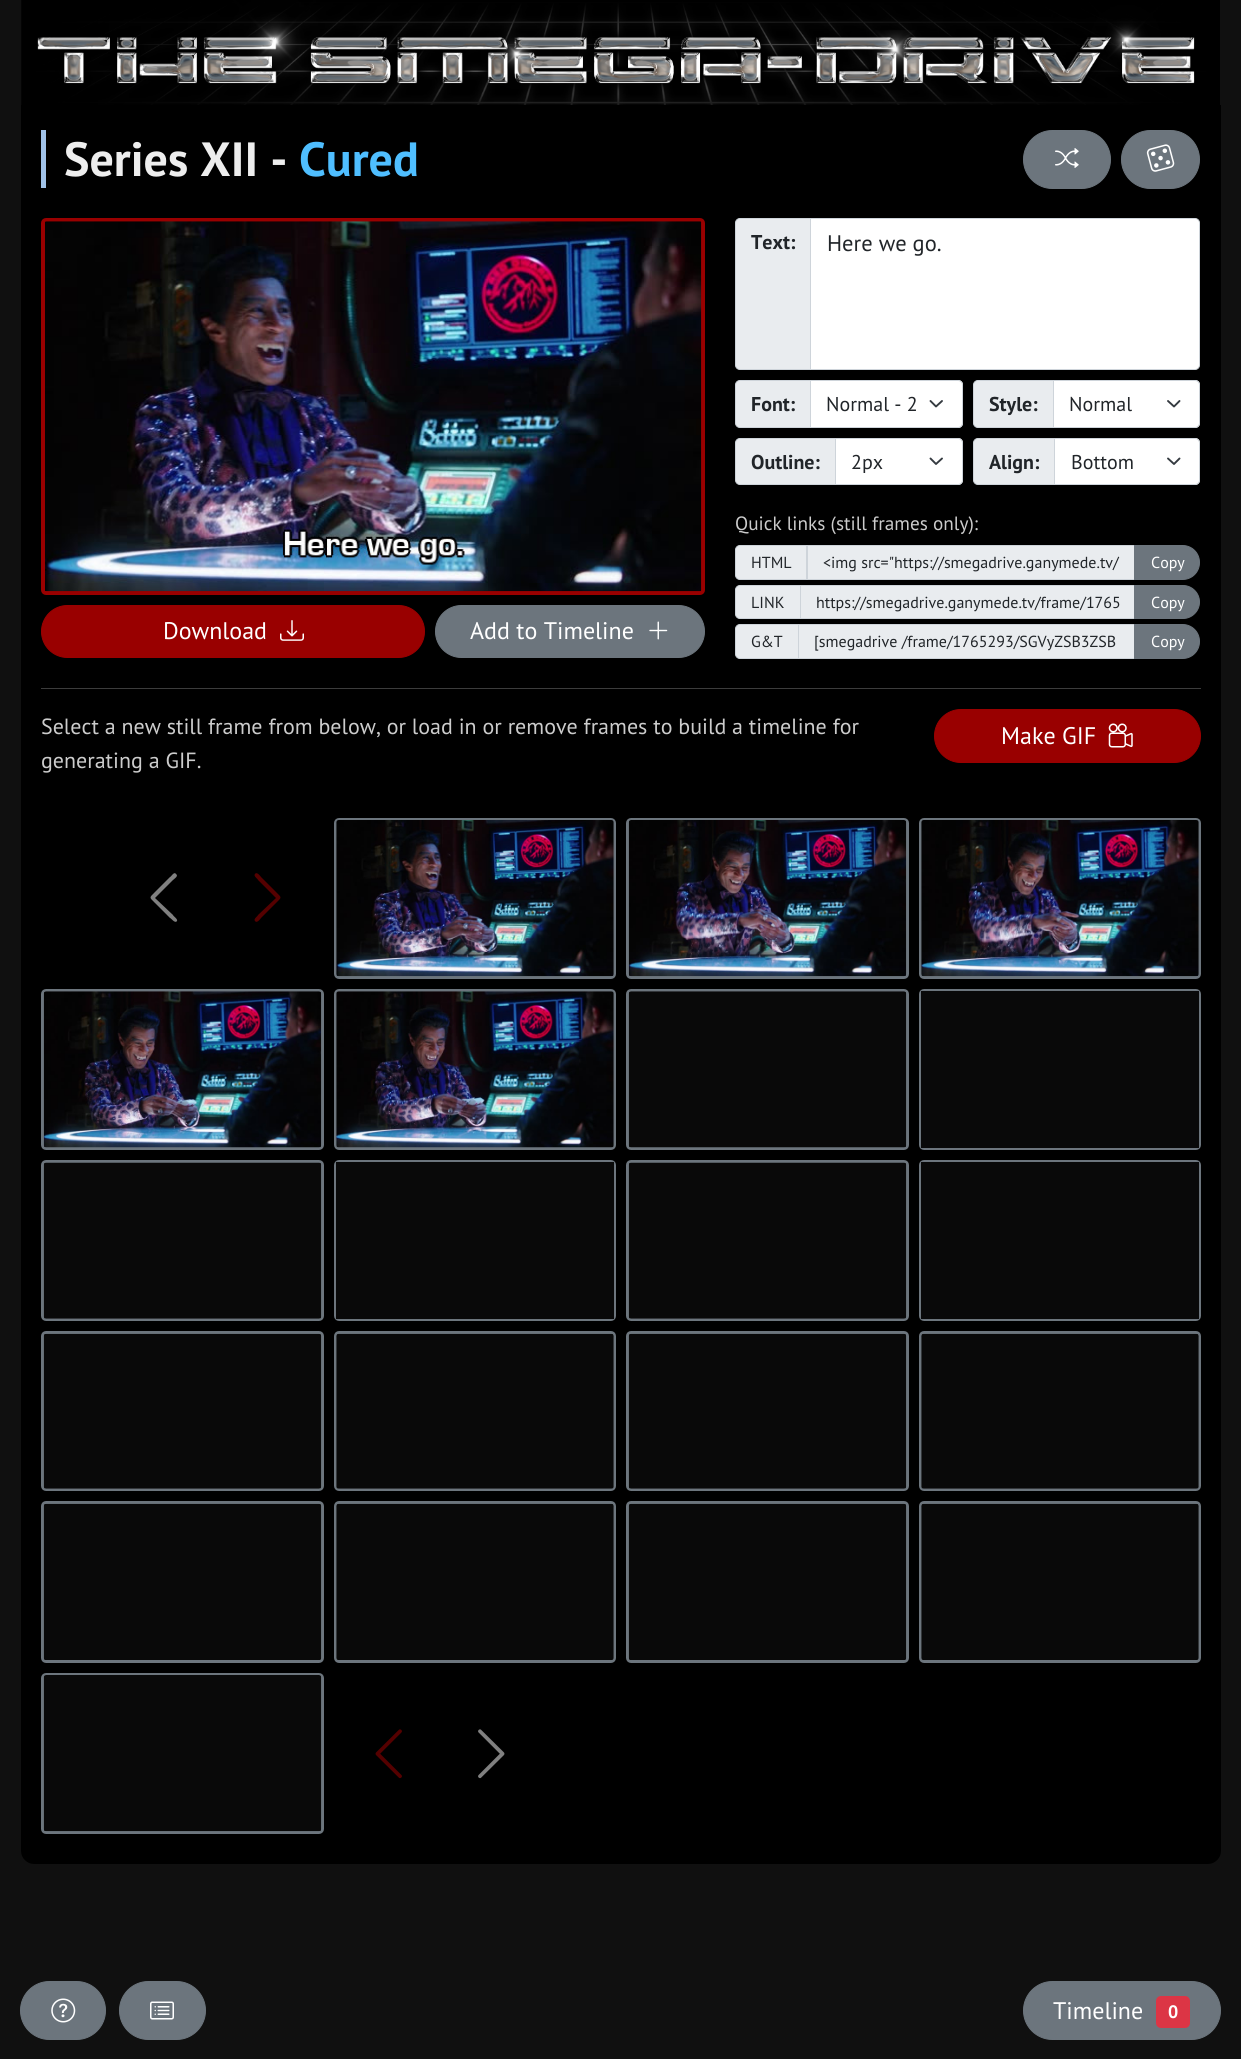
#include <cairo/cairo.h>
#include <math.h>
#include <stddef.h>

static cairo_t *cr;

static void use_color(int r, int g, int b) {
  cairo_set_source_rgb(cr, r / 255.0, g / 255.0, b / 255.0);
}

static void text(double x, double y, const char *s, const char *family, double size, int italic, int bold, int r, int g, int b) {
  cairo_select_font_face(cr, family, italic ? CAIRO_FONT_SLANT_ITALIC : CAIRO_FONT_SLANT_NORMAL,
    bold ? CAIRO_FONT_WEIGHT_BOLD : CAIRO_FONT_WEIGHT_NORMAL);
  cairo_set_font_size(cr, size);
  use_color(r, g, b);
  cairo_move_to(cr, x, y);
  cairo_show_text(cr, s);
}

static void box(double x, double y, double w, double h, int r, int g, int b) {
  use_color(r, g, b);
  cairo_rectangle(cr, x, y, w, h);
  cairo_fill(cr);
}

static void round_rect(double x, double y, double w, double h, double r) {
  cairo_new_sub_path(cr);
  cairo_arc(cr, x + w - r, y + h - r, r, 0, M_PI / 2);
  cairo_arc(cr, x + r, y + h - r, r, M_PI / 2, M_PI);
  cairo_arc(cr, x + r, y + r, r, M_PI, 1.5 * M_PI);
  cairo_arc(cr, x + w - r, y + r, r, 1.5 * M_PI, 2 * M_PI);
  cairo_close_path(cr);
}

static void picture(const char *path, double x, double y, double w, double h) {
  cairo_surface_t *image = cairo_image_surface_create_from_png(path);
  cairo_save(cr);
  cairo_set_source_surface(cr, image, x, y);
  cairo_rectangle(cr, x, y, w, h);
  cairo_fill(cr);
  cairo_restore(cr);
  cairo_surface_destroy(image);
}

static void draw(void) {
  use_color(16, 16, 16);
  cairo_paint(cr);
  picture("img_01.png", 21, 0, 1199, 105);
  use_color(0, 0, 0);
  cairo_new_path(cr);
  cairo_move_to(cr, 21, 105);
  cairo_line_to(cr, 1221, 105);
  cairo_line_to(cr, 1221, 1851);
  cairo_curve_to(cr, 1221, 1858, 1215, 1864, 1208, 1864);
  cairo_line_to(cr, 34, 1864);
  cairo_curve_to(cr, 27, 1864, 21, 1858, 21, 1851);
  cairo_close_path(cr);
  cairo_fill(cr);
  box(41, 130, 5, 58, 160, 194, 232);
  use_color(108, 117, 125);
  round_rect(1023.5, 130.5, 87, 58, 29);
  cairo_fill_preserve(cr);
  cairo_set_line_width(cr, 1);
  cairo_stroke(cr);
  picture("img_02.png", 1055, 148, 24, 20);
  round_rect(1121.5, 130.5, 78, 58, 29);
  cairo_fill_preserve(cr);
  cairo_stroke(cr);
  picture("img_03.png", 1146, 144, 29, 28);
  round_rect(43, 220, 660, 373, 3);
  use_color(153, 0, 0);
  cairo_set_line_width(cr, 4);
  cairo_stroke(cr);
  picture("img_04.png", 45, 221, 657, 371);
  round_rect(41.5, 605.5, 383, 52, 26);
  cairo_fill_preserve(cr);
  cairo_set_line_width(cr, 1);
  cairo_stroke(cr);
  picture("img_05.png", 280, 620, 24, 21);
  use_color(108, 117, 125);
  round_rect(435.5, 605.5, 269, 52, 26);
  cairo_fill_preserve(cr);
  cairo_stroke(cr);
  picture("img_06.png", 649, 621, 19, 19);
  use_color(233, 236, 239);
  cairo_new_path(cr);
  cairo_move_to(cr, 740, 218.5);
  cairo_line_to(cr, 810.5, 218.5);
  cairo_line_to(cr, 810.5, 369.5);
  cairo_line_to(cr, 740, 369.5);
  cairo_curve_to(cr, 737.5, 369.5, 735.5, 367.5, 735.5, 365);
  cairo_line_to(cr, 735.5, 223);
  cairo_curve_to(cr, 735.5, 220.5, 737.5, 218.5, 740, 218.5);
  cairo_close_path(cr);
  cairo_fill_preserve(cr);
  use_color(206, 212, 218);
  cairo_stroke(cr);
  use_color(255, 255, 255);
  cairo_new_path(cr);
  cairo_move_to(cr, 810.5, 218.5);
  cairo_line_to(cr, 1195, 218.5);
  cairo_curve_to(cr, 1197.5, 218.5, 1199.5, 220.5, 1199.5, 223);
  cairo_line_to(cr, 1199.5, 365);
  cairo_curve_to(cr, 1199.5, 367.5, 1197.5, 369.5, 1195, 369.5);
  cairo_line_to(cr, 810.5, 369.5);
  cairo_close_path(cr);
  cairo_fill_preserve(cr);
  use_color(206, 212, 218);
  cairo_stroke(cr);
  use_color(233, 236, 239);
  cairo_new_path(cr);
  cairo_move_to(cr, 740, 380.5);
  cairo_line_to(cr, 810.5, 380.5);
  cairo_line_to(cr, 810.5, 427.5);
  cairo_line_to(cr, 740, 427.5);
  cairo_curve_to(cr, 737.5, 427.5, 735.5, 425.5, 735.5, 423);
  cairo_line_to(cr, 735.5, 385);
  cairo_curve_to(cr, 735.5, 382.5, 737.5, 380.5, 740, 380.5);
  cairo_close_path(cr);
  cairo_fill_preserve(cr);
  use_color(206, 212, 218);
  cairo_stroke(cr);
  use_color(255, 255, 255);
  cairo_new_path(cr);
  cairo_move_to(cr, 810, 380);
  cairo_line_to(cr, 958, 380);
  cairo_curve_to(cr, 961, 380, 963, 382, 963, 385);
  cairo_line_to(cr, 963, 423);
  cairo_curve_to(cr, 963, 426, 961, 428, 958, 428);
  cairo_line_to(cr, 810, 428);
  cairo_close_path(cr);
  cairo_fill(cr);
  cairo_new_path(cr);
  cairo_move_to(cr, 930.5, 401);
  cairo_line_to(cr, 936, 406.5);
  cairo_line_to(cr, 942, 401);
  use_color(52, 58, 64);
  cairo_set_line_width(cr, 1.9);
  cairo_set_line_cap(cr, CAIRO_LINE_CAP_ROUND);
  cairo_set_line_join(cr, CAIRO_LINE_JOIN_ROUND);
  cairo_stroke(cr);
  cairo_new_path(cr);
  cairo_move_to(cr, 810.5, 380.5);
  cairo_line_to(cr, 958, 380.5);
  cairo_curve_to(cr, 960.5, 380.5, 962.5, 382.5, 962.5, 385);
  cairo_line_to(cr, 962.5, 423);
  cairo_curve_to(cr, 962.5, 425.5, 960.5, 427.5, 958, 427.5);
  cairo_line_to(cr, 810.5, 427.5);
  cairo_close_path(cr);
  use_color(206, 212, 218);
  cairo_set_line_width(cr, 1);
  cairo_set_line_cap(cr, CAIRO_LINE_CAP_BUTT);
  cairo_set_line_join(cr, CAIRO_LINE_JOIN_MITER);
  cairo_stroke(cr);
  use_color(233, 236, 239);
  cairo_new_path(cr);
  cairo_move_to(cr, 978, 380.5);
  cairo_line_to(cr, 1053.5, 380.5);
  cairo_line_to(cr, 1053.5, 427.5);
  cairo_line_to(cr, 978, 427.5);
  cairo_curve_to(cr, 975.5, 427.5, 973.5, 425.5, 973.5, 423);
  cairo_line_to(cr, 973.5, 385);
  cairo_curve_to(cr, 973.5, 382.5, 975.5, 380.5, 978, 380.5);
  cairo_close_path(cr);
  cairo_fill_preserve(cr);
  use_color(206, 212, 218);
  cairo_stroke(cr);
  use_color(255, 255, 255);
  cairo_new_path(cr);
  cairo_move_to(cr, 1053, 380);
  cairo_line_to(cr, 1195, 380);
  cairo_curve_to(cr, 1198, 380, 1200, 382, 1200, 385);
  cairo_line_to(cr, 1200, 423);
  cairo_curve_to(cr, 1200, 426, 1198, 428, 1195, 428);
  cairo_line_to(cr, 1053, 428);
  cairo_close_path(cr);
  cairo_fill(cr);
  cairo_new_path(cr);
  cairo_move_to(cr, 1168, 401);
  cairo_line_to(cr, 1174, 406.5);
  cairo_line_to(cr, 1179.5, 401);
  use_color(52, 58, 64);
  cairo_set_line_width(cr, 1.9);
  cairo_set_line_cap(cr, CAIRO_LINE_CAP_ROUND);
  cairo_set_line_join(cr, CAIRO_LINE_JOIN_ROUND);
  cairo_stroke(cr);
  cairo_new_path(cr);
  cairo_move_to(cr, 1053.5, 380.5);
  cairo_line_to(cr, 1195, 380.5);
  cairo_curve_to(cr, 1197.5, 380.5, 1199.5, 382.5, 1199.5, 385);
  cairo_line_to(cr, 1199.5, 423);
  cairo_curve_to(cr, 1199.5, 425.5, 1197.5, 427.5, 1195, 427.5);
  cairo_line_to(cr, 1053.5, 427.5);
  cairo_close_path(cr);
  use_color(206, 212, 218);
  cairo_set_line_width(cr, 1);
  cairo_set_line_cap(cr, CAIRO_LINE_CAP_BUTT);
  cairo_set_line_join(cr, CAIRO_LINE_JOIN_MITER);
  cairo_stroke(cr);
  use_color(233, 236, 239);
  cairo_new_path(cr);
  cairo_move_to(cr, 740, 438.5);
  cairo_line_to(cr, 835.5, 438.5);
  cairo_line_to(cr, 835.5, 484.5);
  cairo_line_to(cr, 740, 484.5);
  cairo_curve_to(cr, 737.5, 484.5, 735.5, 482.5, 735.5, 480);
  cairo_line_to(cr, 735.5, 443);
  cairo_curve_to(cr, 735.5, 440.5, 737.5, 438.5, 740, 438.5);
  cairo_close_path(cr);
  cairo_fill_preserve(cr);
  use_color(206, 212, 218);
  cairo_stroke(cr);
  use_color(255, 255, 255);
  cairo_new_path(cr);
  cairo_move_to(cr, 835, 438);
  cairo_line_to(cr, 958, 438);
  cairo_curve_to(cr, 961, 438, 963, 440, 963, 443);
  cairo_line_to(cr, 963, 480);
  cairo_curve_to(cr, 963, 483, 961, 485, 958, 485);
  cairo_line_to(cr, 835, 485);
  cairo_close_path(cr);
  cairo_fill(cr);
  cairo_new_path(cr);
  cairo_move_to(cr, 930.5, 458.5);
  cairo_line_to(cr, 936, 464);
  cairo_line_to(cr, 942, 458.5);
  use_color(52, 58, 64);
  cairo_set_line_width(cr, 1.9);
  cairo_set_line_cap(cr, CAIRO_LINE_CAP_ROUND);
  cairo_set_line_join(cr, CAIRO_LINE_JOIN_ROUND);
  cairo_stroke(cr);
  cairo_new_path(cr);
  cairo_move_to(cr, 835.5, 438.5);
  cairo_line_to(cr, 958, 438.5);
  cairo_curve_to(cr, 960.5, 438.5, 962.5, 440.5, 962.5, 443);
  cairo_line_to(cr, 962.5, 480);
  cairo_curve_to(cr, 962.5, 482.5, 960.5, 484.5, 958, 484.5);
  cairo_line_to(cr, 835.5, 484.5);
  cairo_close_path(cr);
  use_color(206, 212, 218);
  cairo_set_line_width(cr, 1);
  cairo_set_line_cap(cr, CAIRO_LINE_CAP_BUTT);
  cairo_set_line_join(cr, CAIRO_LINE_JOIN_MITER);
  cairo_stroke(cr);
  use_color(233, 236, 239);
  cairo_new_path(cr);
  cairo_move_to(cr, 978, 438.5);
  cairo_line_to(cr, 1054.5, 438.5);
  cairo_line_to(cr, 1054.5, 484.5);
  cairo_line_to(cr, 978, 484.5);
  cairo_curve_to(cr, 975.5, 484.5, 973.5, 482.5, 973.5, 480);
  cairo_line_to(cr, 973.5, 443);
  cairo_curve_to(cr, 973.5, 440.5, 975.5, 438.5, 978, 438.5);
  cairo_close_path(cr);
  cairo_fill_preserve(cr);
  use_color(206, 212, 218);
  cairo_stroke(cr);
  use_color(255, 255, 255);
  cairo_new_path(cr);
  cairo_move_to(cr, 1054, 438);
  cairo_line_to(cr, 1195, 438);
  cairo_curve_to(cr, 1198, 438, 1200, 440, 1200, 443);
  cairo_line_to(cr, 1200, 480);
  cairo_curve_to(cr, 1200, 483, 1198, 485, 1195, 485);
  cairo_line_to(cr, 1054, 485);
  cairo_close_path(cr);
  cairo_fill(cr);
  cairo_new_path(cr);
  cairo_move_to(cr, 1168, 458.5);
  cairo_line_to(cr, 1174, 464);
  cairo_line_to(cr, 1179.5, 458.5);
  use_color(52, 58, 64);
  cairo_set_line_width(cr, 1.9);
  cairo_set_line_cap(cr, CAIRO_LINE_CAP_ROUND);
  cairo_set_line_join(cr, CAIRO_LINE_JOIN_ROUND);
  cairo_stroke(cr);
  cairo_new_path(cr);
  cairo_move_to(cr, 1054.5, 438.5);
  cairo_line_to(cr, 1195, 438.5);
  cairo_curve_to(cr, 1197.5, 438.5, 1199.5, 440.5, 1199.5, 443);
  cairo_line_to(cr, 1199.5, 480);
  cairo_curve_to(cr, 1199.5, 482.5, 1197.5, 484.5, 1195, 484.5);
  cairo_line_to(cr, 1054.5, 484.5);
  cairo_close_path(cr);
  use_color(206, 212, 218);
  cairo_set_line_width(cr, 1);
  cairo_set_line_cap(cr, CAIRO_LINE_CAP_BUTT);
  cairo_set_line_join(cr, CAIRO_LINE_JOIN_MITER);
  cairo_stroke(cr);
  use_color(233, 236, 239);
  cairo_new_path(cr);
  cairo_move_to(cr, 740, 545.5);
  cairo_line_to(cr, 807.5, 545.5);
  cairo_line_to(cr, 807.5, 579.5);
  cairo_line_to(cr, 740, 579.5);
  cairo_curve_to(cr, 737.5, 579.5, 735.5, 577.5, 735.5, 575);
  cairo_line_to(cr, 735.5, 550);
  cairo_curve_to(cr, 735.5, 547.5, 737.5, 545.5, 740, 545.5);
  cairo_close_path(cr);
  cairo_fill_preserve(cr);
  use_color(206, 212, 218);
  cairo_stroke(cr);
  box(808, 546, 326, 33, 233, 236, 239);
  cairo_rectangle(cr, 806.5, 545.5, 328, 34);
  use_color(206, 212, 218);
  cairo_stroke(cr);
  use_color(108, 117, 125);
  cairo_new_path(cr);
  cairo_move_to(cr, 1134.5, 545.5);
  cairo_line_to(cr, 1182.5, 545.5);
  cairo_curve_to(cr, 1192, 545.5, 1199.5, 553, 1199.5, 562.5);
  cairo_curve_to(cr, 1199.5, 572, 1192, 579.5, 1182.5, 579.5);
  cairo_line_to(cr, 1134.5, 579.5);
  cairo_close_path(cr);
  cairo_fill_preserve(cr);
  cairo_stroke(cr);
  use_color(233, 236, 239);
  cairo_new_path(cr);
  cairo_move_to(cr, 740, 585.5);
  cairo_line_to(cr, 800.5, 585.5);
  cairo_line_to(cr, 800.5, 618.5);
  cairo_line_to(cr, 740, 618.5);
  cairo_curve_to(cr, 737.5, 618.5, 735.5, 616.5, 735.5, 614);
  cairo_line_to(cr, 735.5, 590);
  cairo_curve_to(cr, 735.5, 587.5, 737.5, 585.5, 740, 585.5);
  cairo_close_path(cr);
  cairo_fill_preserve(cr);
  use_color(206, 212, 218);
  cairo_stroke(cr);
  use_color(233, 236, 239);
  cairo_rectangle(cr, 800.5, 585.5, 334, 33);
  cairo_fill_preserve(cr);
  use_color(206, 212, 218);
  cairo_stroke(cr);
  use_color(108, 117, 125);
  cairo_new_path(cr);
  cairo_move_to(cr, 1134.5, 585.5);
  cairo_line_to(cr, 1183, 585.5);
  cairo_curve_to(cr, 1192, 585.5, 1199.5, 593, 1199.5, 602);
  cairo_curve_to(cr, 1199.5, 611, 1192, 618.5, 1183, 618.5);
  cairo_line_to(cr, 1134.5, 618.5);
  cairo_close_path(cr);
  cairo_fill_preserve(cr);
  cairo_stroke(cr);
  use_color(233, 236, 239);
  cairo_new_path(cr);
  cairo_move_to(cr, 740, 624.5);
  cairo_line_to(cr, 798.5, 624.5);
  cairo_line_to(cr, 798.5, 658.5);
  cairo_line_to(cr, 740, 658.5);
  cairo_curve_to(cr, 737.5, 658.5, 735.5, 656.5, 735.5, 654);
  cairo_line_to(cr, 735.5, 629);
  cairo_curve_to(cr, 735.5, 626.5, 737.5, 624.5, 740, 624.5);
  cairo_close_path(cr);
  cairo_fill_preserve(cr);
  use_color(206, 212, 218);
  cairo_stroke(cr);
  use_color(233, 236, 239);
  cairo_rectangle(cr, 798.5, 624.5, 336, 34);
  cairo_fill_preserve(cr);
  use_color(206, 212, 218);
  cairo_stroke(cr);
  use_color(108, 117, 125);
  cairo_new_path(cr);
  cairo_move_to(cr, 1134.5, 624.5);
  cairo_line_to(cr, 1182.5, 624.5);
  cairo_curve_to(cr, 1192, 624.5, 1199.5, 632, 1199.5, 641.5);
  cairo_curve_to(cr, 1199.5, 651, 1192, 658.5, 1182.5, 658.5);
  cairo_line_to(cr, 1134.5, 658.5);
  cairo_close_path(cr);
  cairo_fill_preserve(cr);
  cairo_stroke(cr);
  box(41, 688, 1160, 1, 60, 60, 60);
  use_color(153, 0, 0);
  round_rect(934.5, 709.5, 266, 53, 26.5);
  cairo_fill_preserve(cr);
  cairo_stroke(cr);
  picture("img_07.png", 1108, 723, 25, 25);
  use_color(128, 128, 128);
  cairo_new_path(cr);
  cairo_move_to(cr, 176, 874);
  cairo_curve_to(cr, 179, 876, 174, 879, 173, 880);
  cairo_line_to(cr, 155, 898);
  cairo_line_to(cr, 173, 915);
  cairo_curve_to(cr, 173, 916, 178, 919, 177, 921);
  cairo_curve_to(cr, 175, 924, 171, 918, 170, 918);
  cairo_line_to(cr, 155, 903);
  cairo_curve_to(cr, 149, 897, 149, 898, 155, 892);
  cairo_line_to(cr, 170, 877);
  cairo_curve_to(cr, 171, 877, 174, 871, 176, 874);
  cairo_close_path(cr);
  cairo_fill(cr);
  use_color(85, 0, 0);
  cairo_new_path(cr);
  cairo_move_to(cr, 255, 874);
  cairo_curve_to(cr, 257, 871, 261, 877, 261, 877);
  cairo_line_to(cr, 276, 892);
  cairo_curve_to(cr, 282, 898, 282, 897, 276, 903);
  cairo_line_to(cr, 261, 918);
  cairo_curve_to(cr, 261, 918, 257, 924, 255, 921);
  cairo_curve_to(cr, 253, 919, 258, 916, 258, 915);
  cairo_line_to(cr, 276, 898);
  cairo_line_to(cr, 258, 880);
  cairo_curve_to(cr, 258, 879, 253, 876, 255, 874);
  cairo_close_path(cr);
  cairo_fill(cr);
  round_rect(335.5, 819.5, 279, 158, 3.5);
  use_color(108, 117, 125);
  cairo_set_line_width(cr, 3);
  cairo_stroke(cr);
  picture("img_08.png", 336, 820, 278, 157);
  round_rect(627.5, 819.5, 280, 158, 3.5);
  cairo_stroke(cr);
  picture("img_09.png", 628, 820, 279, 157);
  round_rect(920.5, 819.5, 279, 158, 3.5);
  cairo_stroke(cr);
  picture("img_10.png", 921, 820, 278, 157);
  round_rect(42.5, 990.5, 280, 158, 3.5);
  cairo_stroke(cr);
  picture("img_11.png", 43, 991, 279, 157);
  round_rect(335.5, 990.5, 279, 158, 3.5);
  cairo_stroke(cr);
  picture("img_12.png", 336, 991, 278, 157);
  round_rect(627.5, 990.5, 280, 158, 3.5);
  cairo_stroke(cr);
  picture("img_13.png", 628, 991, 279, 157);
  round_rect(920.5, 990.5, 279, 158, 3.5);
  cairo_stroke(cr);
  box(921, 991, 278, 157, 9, 9, 9);
  round_rect(42.5, 1161.5, 280, 158, 3.5);
  use_color(108, 117, 125);
  cairo_stroke(cr);
  picture("img_14.png", 43, 1162, 279, 157);
  round_rect(335.5, 1161.5, 279, 158, 3.5);
  cairo_stroke(cr);
  box(336, 1162, 278, 157, 9, 9, 9);
  round_rect(627.5, 1161.5, 280, 158, 3.5);
  use_color(108, 117, 125);
  cairo_stroke(cr);
  picture("img_14.png", 628, 1162, 279, 157);
  round_rect(920.5, 1161.5, 279, 158, 3.5);
  cairo_stroke(cr);
  box(921, 1162, 278, 157, 9, 9, 9);
  round_rect(42.5, 1332.5, 280, 157, 3.5);
  use_color(108, 117, 125);
  cairo_stroke(cr);
  picture("img_15.png", 43, 1333, 279, 156);
  round_rect(335.5, 1332.5, 279, 157, 3.5);
  cairo_stroke(cr);
  picture("img_16.png", 336, 1333, 278, 156);
  round_rect(627.5, 1332.5, 280, 157, 3.5);
  cairo_stroke(cr);
  picture("img_15.png", 628, 1333, 279, 156);
  round_rect(920.5, 1332.5, 279, 157, 3.5);
  cairo_stroke(cr);
  picture("img_16.png", 921, 1333, 278, 156);
  round_rect(42.5, 1502.5, 280, 159, 3.5);
  cairo_stroke(cr);
  picture("img_17.png", 43, 1503, 279, 157);
  round_rect(335.5, 1502.5, 279, 159, 3.5);
  cairo_stroke(cr);
  picture("img_18.png", 336, 1503, 278, 157);
  round_rect(627.5, 1502.5, 280, 159, 3.5);
  cairo_stroke(cr);
  picture("img_17.png", 628, 1503, 279, 157);
  round_rect(920.5, 1502.5, 279, 159, 3.5);
  cairo_stroke(cr);
  picture("img_18.png", 921, 1503, 278, 157);
  round_rect(42.5, 1674.5, 280, 158, 3.5);
  cairo_stroke(cr);
  picture("img_19.png", 43, 1675, 279, 157);
  picture("img_20.png", 375, 1729, 27, 50);
  picture("img_21.png", 478, 1729, 27, 50);
  round_rect(20.5, 1981.5, 85, 58, 29);
  cairo_fill_preserve(cr);
  cairo_set_line_width(cr, 1);
  cairo_stroke(cr);
  picture("img_22.png", 51, 1998, 25, 25);
  round_rect(119.5, 1981.5, 86, 58, 29);
  cairo_fill_preserve(cr);
  cairo_stroke(cr);
  picture("img_23.png", 150, 2001, 24, 19);
  round_rect(1023.5, 1981.5, 197, 58, 29);
  cairo_fill_preserve(cr);
  cairo_stroke(cr);
  use_color(220, 53, 69);
  round_rect(1156, 1996, 34, 32, 5);
  cairo_fill(cr);
  text(64, 176, "Series XII -", "PT Sans", 48, 0, 1, 238, 238, 238);
  text(299, 176, "Cured", "PT Sans", 48, 0, 1, 79, 190, 255);
  text(163, 639, "Download", "PT Sans", 24, 0, 0, 255, 255, 255);
  text(470, 639, "Add to Timeline", "PT Sans", 24, 0, 0, 255, 255, 255);
  text(751, 249, "Text:", "PT Sans", 20, 0, 1, 33, 37, 41);
  text(827, 251, "Here we go.", "PT Sans", 22.5, 0, 0, 33, 37, 41);
  text(751, 411, "Font:", "PT Sans", 20, 0, 1, 33, 37, 41);
  cairo_save(cr);
  cairo_rectangle(cr, 826, 389, 90, 30);
  cairo_clip(cr);
  text(826, 411, "Normal - 2", "PT Sans", 20, 0, 0, 33, 37, 41);
  cairo_restore(cr);
  text(989, 411, "Style:", "PT Sans", 20, 0, 1, 33, 37, 41);
  text(1069, 411, "Normal", "PT Sans", 20, 0, 0, 33, 37, 41);
  text(751, 469, "Outline:", "PT Sans", 20, 0, 1, 33, 37, 41);
  text(851, 469, "2px", "PT Sans", 20, 0, 0, 33, 37, 41);
  text(989, 469, "Align:", "PT Sans", 20, 0, 1, 33, 37, 41);
  text(1071, 469, "Bottom", "PT Sans", 20, 0, 0, 33, 37, 41);
  text(735, 530, "Quick links (still frames only):", "PT Sans", 19.25, 0, 0, 204, 204, 204);
  text(751, 568, "HTML", "PT Sans", 16, 0, 0, 33, 37, 41);
  text(823, 568, "<img src=\"https://smegadrive.ganymede.tv/", "PT Sans", 16, 0, 0, 33, 37, 41);
  text(1151, 568, "Copy", "PT Sans", 16, 0, 0, 255, 255, 255);
  text(751, 608, "LINK", "PT Sans", 16, 0, 0, 33, 37, 41);
  text(816, 608, "https://smegadrive.ganymede.tv/frame/1765", "PT Sans", 16, 0, 0, 33, 37, 41);
  text(1151, 608, "Copy", "PT Sans", 16, 0, 0, 255, 255, 255);
  text(751, 647, "G&T", "PT Sans", 16, 0, 0, 33, 37, 41);
  text(814, 647, "[smegadrive /frame/1765293/SGVyZSB3ZSB", "PT Sans", 16, 0, 0, 33, 37, 41);
  text(1151, 647, "Copy", "PT Sans", 16, 0, 0, 255, 255, 255);
  text(41, 734, "Select a new still frame from below, or load in or remove frames to build a timeline for", "PT Sans", 22, 0, 0, 204, 204, 204);
  text(41, 768, "generating a GIF.", "PT Sans", 22, 0, 0, 204, 204, 204);
  text(1001, 744, "Make GIF", "PT Sans", 24, 0, 0, 255, 255, 255);
  text(1053, 2019, "Timeline", "PT Sans", 24, 0, 0, 255, 255, 255);
  text(1168, 2018, "0", "PT Sans", 18, 0, 1, 255, 255, 255);
}

int main(void) {
  cairo_surface_t *surface = cairo_image_surface_create(CAIRO_FORMAT_RGB24, 1241, 2059);
  cr = cairo_create(surface);
  cairo_font_options_t *options = cairo_font_options_create();
  cairo_font_options_set_hint_metrics(options, CAIRO_HINT_METRICS_OFF);
  cairo_font_options_set_hint_style(options, CAIRO_HINT_STYLE_NONE);
  cairo_set_font_options(cr, options);
  cairo_set_miter_limit(cr, 4);
  draw();
  cairo_surface_write_to_png(surface, "out.png");
  cairo_font_options_destroy(options);
  cairo_destroy(cr);
  cairo_surface_destroy(surface);
  return 0;
}
